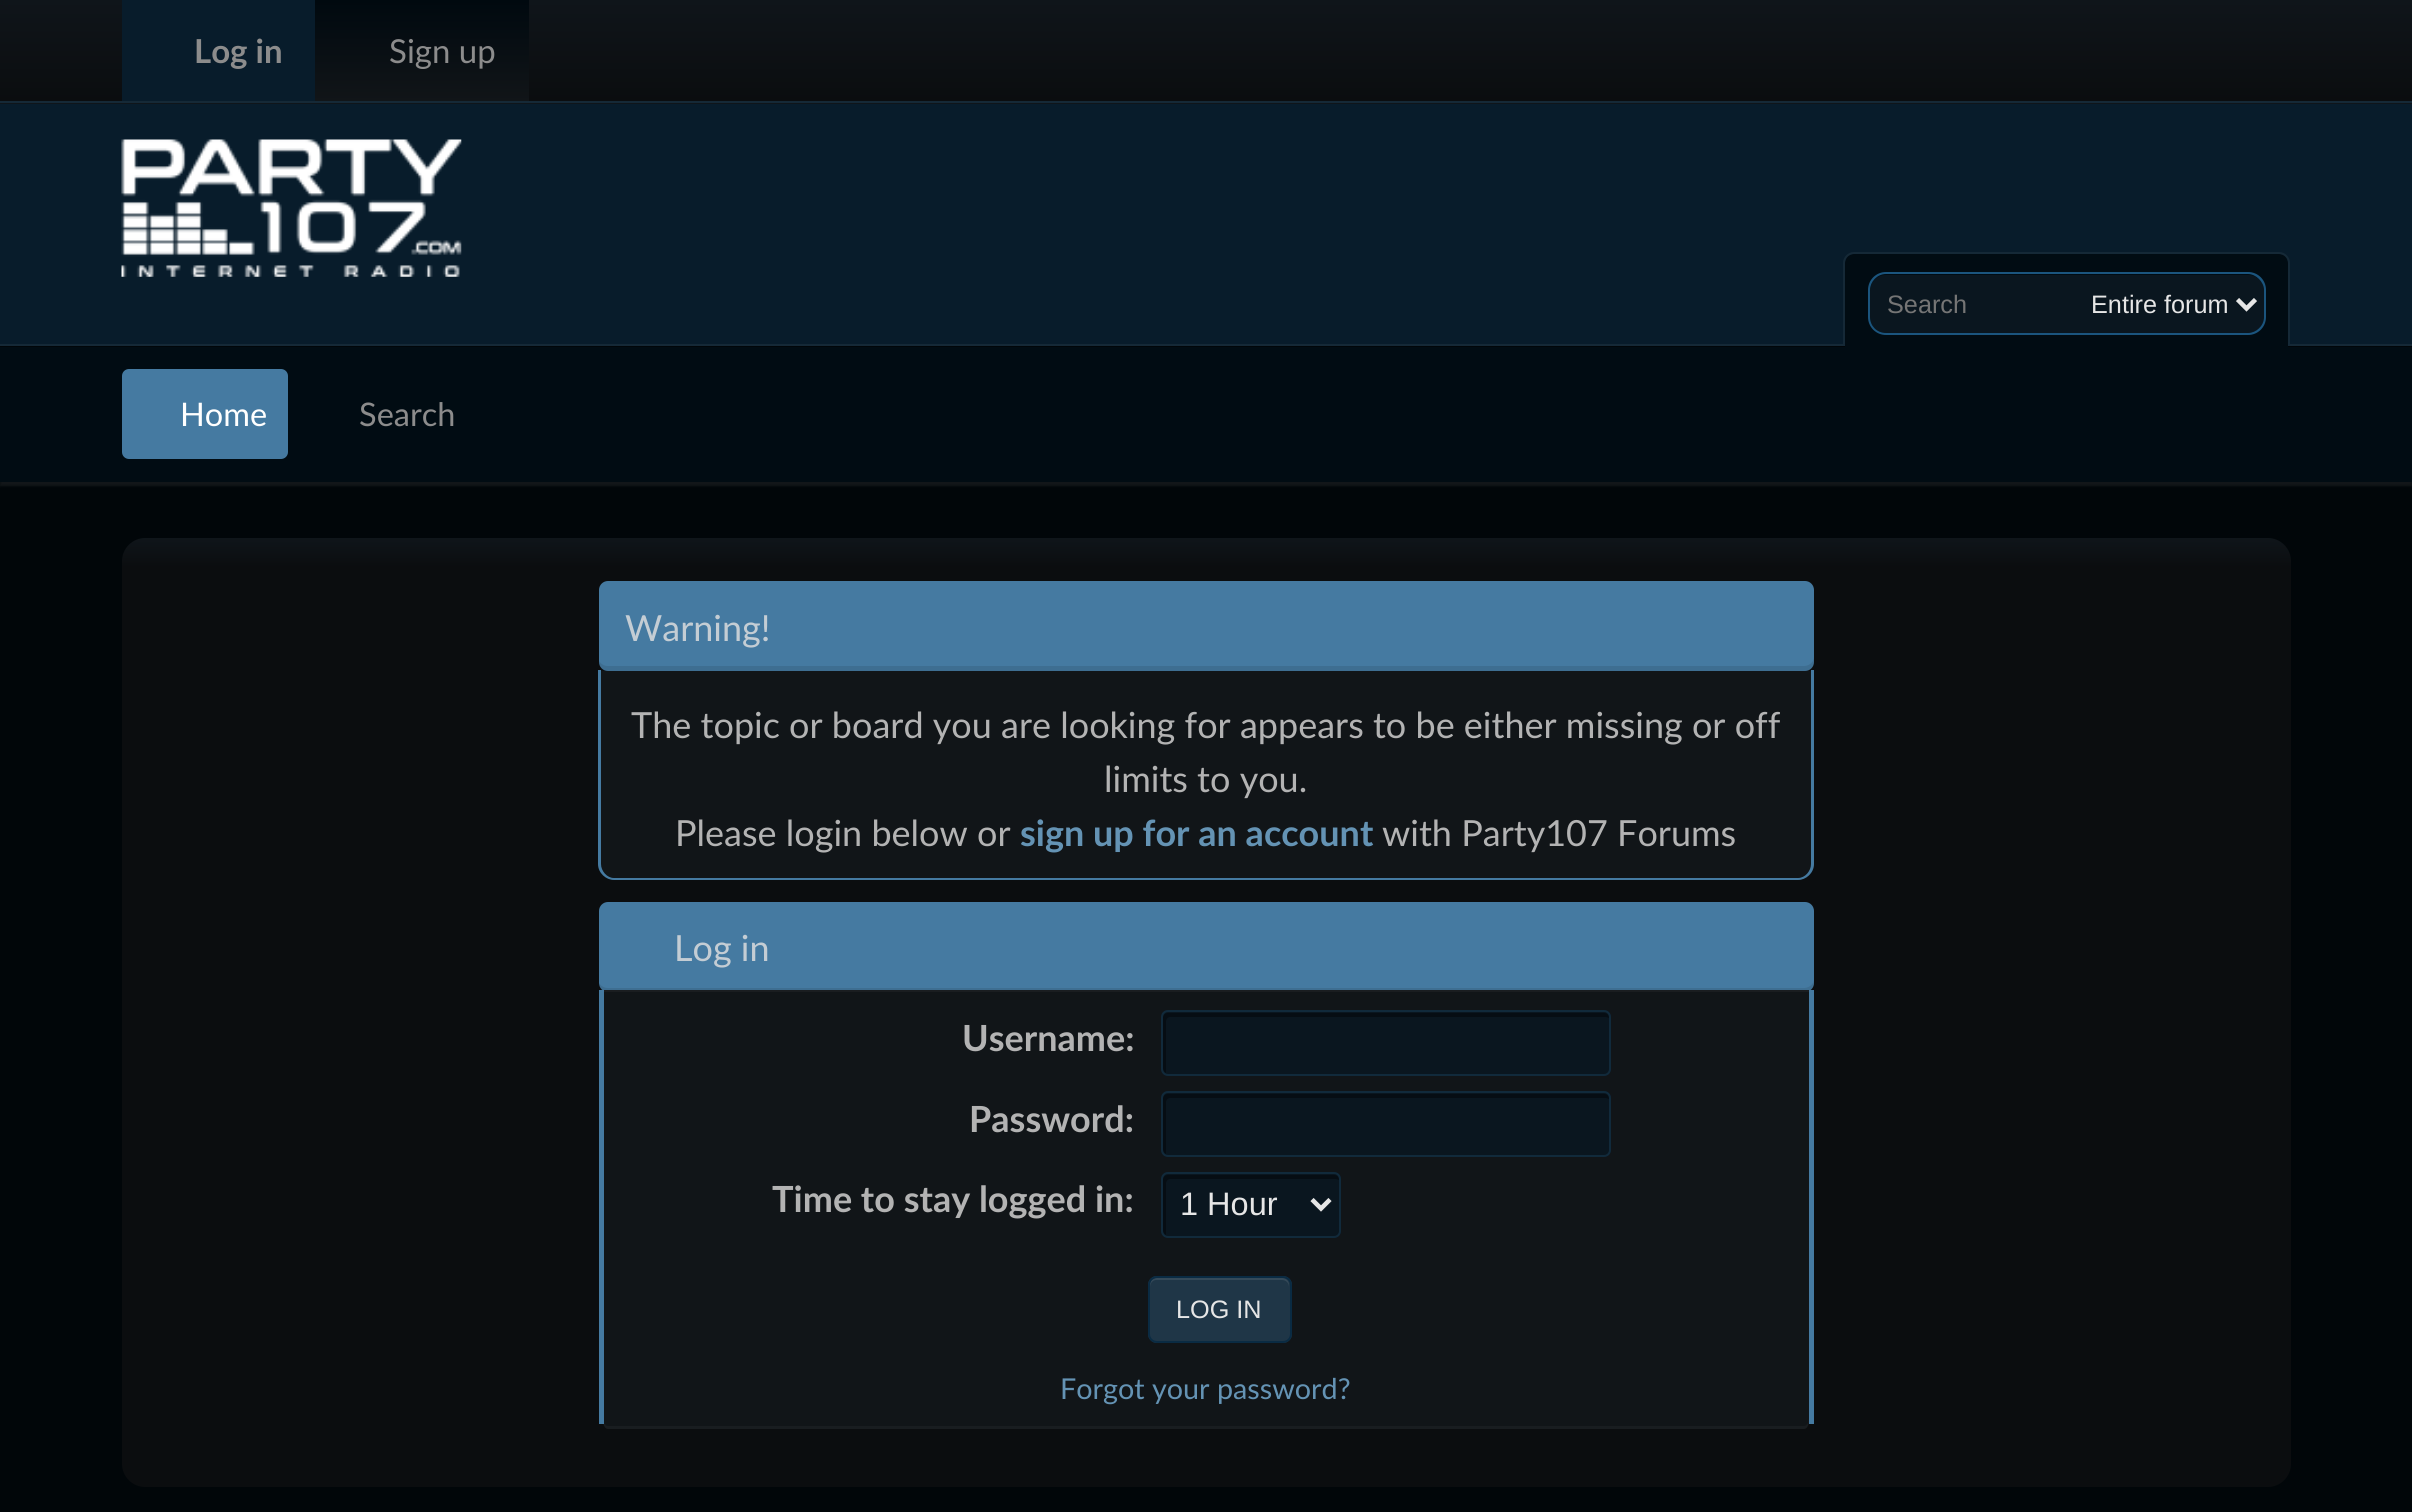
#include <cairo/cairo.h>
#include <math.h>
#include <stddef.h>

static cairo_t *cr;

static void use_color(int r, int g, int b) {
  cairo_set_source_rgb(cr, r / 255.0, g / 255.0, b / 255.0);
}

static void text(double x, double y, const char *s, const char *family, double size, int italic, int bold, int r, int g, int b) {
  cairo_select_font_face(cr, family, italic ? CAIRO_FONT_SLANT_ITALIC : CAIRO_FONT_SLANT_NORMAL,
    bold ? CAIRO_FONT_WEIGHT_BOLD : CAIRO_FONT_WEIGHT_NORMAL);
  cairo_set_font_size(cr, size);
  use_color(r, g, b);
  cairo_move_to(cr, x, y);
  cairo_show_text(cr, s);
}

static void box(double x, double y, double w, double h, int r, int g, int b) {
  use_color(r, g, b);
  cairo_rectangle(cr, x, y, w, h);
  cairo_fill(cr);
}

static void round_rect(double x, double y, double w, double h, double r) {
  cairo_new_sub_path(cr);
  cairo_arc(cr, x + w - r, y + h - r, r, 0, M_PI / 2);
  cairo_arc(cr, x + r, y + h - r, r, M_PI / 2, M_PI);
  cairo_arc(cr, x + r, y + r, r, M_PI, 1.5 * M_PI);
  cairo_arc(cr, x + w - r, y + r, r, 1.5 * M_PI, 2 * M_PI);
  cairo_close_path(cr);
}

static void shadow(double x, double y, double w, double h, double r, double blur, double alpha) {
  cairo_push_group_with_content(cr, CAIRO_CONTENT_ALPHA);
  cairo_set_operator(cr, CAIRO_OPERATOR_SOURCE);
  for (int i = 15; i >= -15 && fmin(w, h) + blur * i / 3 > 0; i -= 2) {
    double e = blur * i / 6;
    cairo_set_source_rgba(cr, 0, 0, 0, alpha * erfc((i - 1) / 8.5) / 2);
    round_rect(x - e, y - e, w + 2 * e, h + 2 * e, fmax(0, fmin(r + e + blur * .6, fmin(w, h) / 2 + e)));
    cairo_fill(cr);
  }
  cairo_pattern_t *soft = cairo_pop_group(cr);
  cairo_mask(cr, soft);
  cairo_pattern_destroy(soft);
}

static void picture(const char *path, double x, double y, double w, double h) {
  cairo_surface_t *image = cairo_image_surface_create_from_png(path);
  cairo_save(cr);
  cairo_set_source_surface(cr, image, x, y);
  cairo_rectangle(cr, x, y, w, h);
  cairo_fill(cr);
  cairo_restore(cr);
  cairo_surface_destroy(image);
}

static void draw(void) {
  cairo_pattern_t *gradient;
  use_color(1, 6, 9);
  cairo_paint(cr);
  gradient = cairo_pattern_create_linear(1206, 0, 1206, 101);
  cairo_pattern_add_color_stop_rgba(gradient, 0, 0.059, 0.082, 0.102, 1);
  cairo_pattern_add_color_stop_rgba(gradient, 1, 0.043, 0.051, 0.059, 1);
  cairo_set_source(cr, gradient);
  cairo_pattern_destroy(gradient);
  cairo_rectangle(cr, 0, 0, 2412, 101);
  cairo_fill(cr);
  gradient = cairo_pattern_create_linear(1206, 101, 1206, 203);
  cairo_pattern_add_color_stop_rgba(gradient, 0, 0.059, 0.082, 0.102, 1);
  cairo_pattern_add_color_stop_rgba(gradient, 1, 0.043, 0.051, 0.059, 1);
  cairo_set_source(cr, gradient);
  cairo_pattern_destroy(gradient);
  cairo_rectangle(cr, 0, 103, 2412, 1);
  cairo_fill(cr);
  box(0, 101, 2412, 2, 21, 41, 55);
  box(122, 0, 193, 101, 8, 28, 43);
  gradient = cairo_pattern_create_linear(422, 0, 422, 101);
  cairo_pattern_add_color_stop_rgba(gradient, 0, 0, 0.035, 0.059, 1);
  cairo_pattern_add_color_stop_rgba(gradient, 1, 0.067, 0.082, 0.094, 1);
  cairo_set_source(cr, gradient);
  cairo_pattern_destroy(gradient);
  cairo_rectangle(cr, 315, 0, 214, 101);
  cairo_fill(cr);
  box(0, 104, 2412, 240, 8, 28, 43);
  box(0, 344, 2412, 2, 21, 41, 55);
  picture("img_01.png", 121, 139, 341, 138);
  use_color(1, 12, 19);
  cairo_new_path(cr);
  cairo_move_to(cr, 1854, 254);
  cairo_line_to(cr, 2279, 254);
  cairo_curve_to(cr, 2284, 254, 2288, 258, 2288, 263);
  cairo_line_to(cr, 2288, 347);
  cairo_line_to(cr, 1845, 347);
  cairo_line_to(cr, 1845, 263);
  cairo_curve_to(cr, 1845, 258, 1849, 254, 1854, 254);
  cairo_close_path(cr);
  cairo_fill(cr);
  use_color(21, 41, 55);
  cairo_set_fill_rule(cr, CAIRO_FILL_RULE_EVEN_ODD);
  cairo_new_path(cr);
  cairo_move_to(cr, 1854, 252);
  cairo_line_to(cr, 2279, 252);
  cairo_curve_to(cr, 2285, 252, 2290, 257, 2290, 263);
  cairo_line_to(cr, 2290, 346);
  cairo_line_to(cr, 1843, 346);
  cairo_line_to(cr, 1843, 263);
  cairo_curve_to(cr, 1843, 257, 1848, 252, 1854, 252);
  cairo_close_path(cr);
  cairo_move_to(cr, 1854, 254);
  cairo_line_to(cr, 2279, 254);
  cairo_curve_to(cr, 2284, 254, 2288, 258, 2288, 263);
  cairo_line_to(cr, 2288, 346);
  cairo_line_to(cr, 1845, 346);
  cairo_line_to(cr, 1845, 263);
  cairo_curve_to(cr, 1845, 258, 1849, 254, 1854, 254);
  cairo_close_path(cr);
  cairo_fill(cr);
  use_color(10, 22, 31);
  cairo_new_path(cr);
  cairo_move_to(cr, 1886, 275);
  cairo_line_to(cr, 2018, 275);
  cairo_line_to(cr, 2018, 333);
  cairo_line_to(cr, 1886, 333);
  cairo_curve_to(cr, 1877, 333, 1870, 326, 1870, 317);
  cairo_line_to(cr, 1870, 291);
  cairo_curve_to(cr, 1870, 282, 1877, 275, 1886, 275);
  cairo_close_path(cr);
  cairo_fill(cr);
  use_color(27, 85, 126);
  cairo_new_path(cr);
  cairo_move_to(cr, 1886, 272);
  cairo_line_to(cr, 2018, 272);
  cairo_line_to(cr, 2018, 335);
  cairo_line_to(cr, 1886, 335);
  cairo_curve_to(cr, 1876, 335, 1868, 327, 1868, 317);
  cairo_line_to(cr, 1868, 290);
  cairo_curve_to(cr, 1868, 280, 1876, 272, 1886, 272);
  cairo_close_path(cr);
  cairo_move_to(cr, 1886, 274);
  cairo_line_to(cr, 2018, 274);
  cairo_line_to(cr, 2018, 333);
  cairo_line_to(cr, 1886, 333);
  cairo_curve_to(cr, 1877, 333, 1870, 326, 1870, 317);
  cairo_line_to(cr, 1870, 290);
  cairo_curve_to(cr, 1870, 282, 1877, 274, 1886, 274);
  cairo_close_path(cr);
  cairo_fill(cr);
  box(2018, 275, 63, 58, 10, 22, 31);
  box(2018, 272, 63, 2, 27, 85, 126);
  box(2018, 333, 63, 2, 27, 85, 126);
  use_color(10, 22, 31);
  cairo_new_path(cr);
  cairo_move_to(cr, 2081, 275);
  cairo_line_to(cr, 2248, 275);
  cairo_curve_to(cr, 2257, 275, 2264, 282, 2264, 291);
  cairo_line_to(cr, 2264, 317);
  cairo_curve_to(cr, 2264, 326, 2257, 333, 2248, 333);
  cairo_line_to(cr, 2081, 333);
  cairo_close_path(cr);
  cairo_fill(cr);
  use_color(27, 85, 126);
  cairo_new_path(cr);
  cairo_move_to(cr, 2081, 272);
  cairo_line_to(cr, 2248, 272);
  cairo_curve_to(cr, 2258, 272, 2266, 280, 2266, 290);
  cairo_line_to(cr, 2266, 317);
  cairo_curve_to(cr, 2266, 327, 2258, 335, 2248, 335);
  cairo_line_to(cr, 2081, 335);
  cairo_close_path(cr);
  cairo_move_to(cr, 2081, 274);
  cairo_line_to(cr, 2248, 274);
  cairo_curve_to(cr, 2256, 274, 2264, 282, 2264, 290);
  cairo_line_to(cr, 2264, 317);
  cairo_curve_to(cr, 2264, 326, 2256, 333, 2248, 333);
  cairo_line_to(cr, 2081, 333);
  cairo_close_path(cr);
  cairo_fill(cr);
  cairo_new_path(cr);
  cairo_move_to(cr, 2237.5, 299.5);
  cairo_line_to(cr, 2246.5, 308.5);
  cairo_line_to(cr, 2255.5, 299.5);
  use_color(230, 230, 230);
  cairo_set_line_width(cr, 4.5);
  cairo_stroke(cr);
  use_color(170, 170, 170);
  shadow(0, 351, 2412, 135, 0, 1, 0.1);
  box(0, 347, 2412, 135, 1, 12, 19);
  use_color(69, 122, 161);
  round_rect(122, 369, 166, 90, 7);
  cairo_fill(cr);
  gradient = cairo_pattern_create_linear(1206, 538, 1206, 567);
  cairo_pattern_add_color_stop_rgba(gradient, 0, 0.059, 0.082, 0.102, 1);
  cairo_pattern_add_color_stop_rgba(gradient, 1, 0.043, 0.051, 0.059, 1);
  cairo_set_source(cr, gradient);
  cairo_pattern_destroy(gradient);
  cairo_new_path(cr);
  cairo_move_to(cr, 145, 538);
  cairo_line_to(cr, 2268, 538);
  cairo_curve_to(cr, 2280.5, 538, 2291, 548.5, 2291, 561);
  cairo_line_to(cr, 2291, 567);
  cairo_line_to(cr, 122, 567);
  cairo_line_to(cr, 122, 561);
  cairo_curve_to(cr, 122, 548.5, 132.5, 538, 145, 538);
  cairo_close_path(cr);
  cairo_fill(cr);
  use_color(11, 13, 15);
  cairo_new_path(cr);
  cairo_move_to(cr, 122, 567);
  cairo_line_to(cr, 2291, 567);
  cairo_line_to(cr, 2291, 1464);
  cairo_curve_to(cr, 2291, 1476.5, 2280.5, 1487, 2268, 1487);
  cairo_line_to(cr, 145, 1487);
  cairo_curve_to(cr, 132.5, 1487, 122, 1476.5, 122, 1464);
  cairo_close_path(cr);
  cairo_fill(cr);
  use_color(69, 122, 161);
  round_rect(599, 581, 1215, 90, 9);
  cairo_fill(cr);
  cairo_set_source_rgba(cr, 0, 0, 0, 0.1);
  cairo_set_fill_rule(cr, CAIRO_FILL_RULE_WINDING);
  cairo_new_path(cr);
  cairo_move_to(cr, 599, 661);
  cairo_line_to(cr, 599, 662);
  cairo_curve_to(cr, 599, 667, 603, 671, 608, 671);
  cairo_line_to(cr, 1805, 671);
  cairo_curve_to(cr, 1810, 671, 1814, 667, 1814, 662);
  cairo_line_to(cr, 1814, 657);
  cairo_curve_to(cr, 1814, 662, 1809, 666, 1804, 666);
  cairo_line_to(cr, 608, 666);
  cairo_curve_to(cr, 604, 666, 601, 664, 599, 661);
  cairo_close_path(cr);
  cairo_fill(cr);
  use_color(17, 21, 24);
  cairo_new_path(cr);
  cairo_move_to(cr, 601, 671);
  cairo_line_to(cr, 1811, 671);
  cairo_line_to(cr, 1811, 864);
  cairo_curve_to(cr, 1811, 871.5, 1804.5, 878, 1797, 878);
  cairo_line_to(cr, 615, 878);
  cairo_curve_to(cr, 607.5, 878, 601, 871.5, 601, 864);
  cairo_close_path(cr);
  cairo_fill(cr);
  use_color(69, 122, 161);
  cairo_set_fill_rule(cr, CAIRO_FILL_RULE_EVEN_ODD);
  cairo_new_path(cr);
  cairo_move_to(cr, 598, 670);
  cairo_line_to(cr, 1814, 670);
  cairo_line_to(cr, 1814, 864);
  cairo_curve_to(cr, 1814, 873, 1806, 880, 1798, 880);
  cairo_line_to(cr, 614, 880);
  cairo_curve_to(cr, 606, 880, 598, 873, 598, 864);
  cairo_close_path(cr);
  cairo_move_to(cr, 601, 670);
  cairo_line_to(cr, 1811, 670);
  cairo_line_to(cr, 1811, 864);
  cairo_curve_to(cr, 1811, 871, 1805, 878, 1798, 878);
  cairo_line_to(cr, 614, 878);
  cairo_curve_to(cr, 607, 878, 601, 871, 601, 864);
  cairo_close_path(cr);
  cairo_fill(cr);
  round_rect(599, 902, 1215, 90, 9);
  cairo_fill(cr);
  cairo_set_source_rgba(cr, 0, 0, 0, 0.1);
  cairo_set_fill_rule(cr, CAIRO_FILL_RULE_WINDING);
  cairo_new_path(cr);
  cairo_move_to(cr, 599, 983);
  cairo_curve_to(cr, 599, 988, 603, 992, 608, 992);
  cairo_line_to(cr, 1805, 992);
  cairo_curve_to(cr, 1813, 992, 1814, 985, 1814, 979);
  cairo_curve_to(cr, 1814, 984, 1809, 988, 1804, 988);
  cairo_line_to(cr, 608, 988);
  cairo_curve_to(cr, 604, 988, 601, 986, 599, 983);
  cairo_close_path(cr);
  cairo_fill(cr);
  use_color(17, 21, 24);
  cairo_new_path(cr);
  cairo_move_to(cr, 603, 990);
  cairo_line_to(cr, 1809, 990);
  cairo_line_to(cr, 1809, 1420);
  cairo_curve_to(cr, 1809, 1425, 1807, 1429, 1804, 1429);
  cairo_line_to(cr, 608, 1429);
  cairo_curve_to(cr, 605, 1429, 603, 1425, 603, 1420);
  cairo_close_path(cr);
  cairo_fill(cr);
  cairo_set_source_rgba(cr, 0.412, 0.412, 0.412, 0.1);
  cairo_new_path(cr);
  cairo_move_to(cr, 603, 1418);
  cairo_line_to(cr, 603, 1420);
  cairo_curve_to(cr, 603, 1425, 605, 1429, 608, 1429);
  cairo_line_to(cr, 1804, 1429);
  cairo_curve_to(cr, 1807, 1429, 1809, 1425, 1809, 1420);
  cairo_line_to(cr, 1809, 1418);
  cairo_curve_to(cr, 1809, 1422, 1807, 1426, 1804, 1426);
  cairo_line_to(cr, 608, 1426);
  cairo_curve_to(cr, 605, 1426, 603, 1422, 603, 1418);
  cairo_close_path(cr);
  cairo_fill(cr);
  box(603, 990, 1206, 2, 26, 29, 32);
  box(1809, 990, 5, 434, 69, 122, 161);
  box(599, 990, 5, 434, 69, 122, 161);
  use_color(10, 22, 31);
  round_rect(1161, 1010, 450, 66, 7);
  cairo_fill(cr);
  use_color(6, 13, 19);
  cairo_new_path(cr);
  cairo_move_to(cr, 1170, 1017);
  cairo_line_to(cr, 1606, 1017);
  cairo_line_to(cr, 1609, 1018);
  cairo_curve_to(cr, 1609, 1015, 1607, 1013, 1604, 1013);
  cairo_line_to(cr, 1168, 1013);
  cairo_curve_to(cr, 1165, 1013, 1163, 1015, 1163, 1018);
  cairo_line_to(cr, 1163, 1068);
  cairo_curve_to(cr, 1163, 1070, 1164, 1072, 1166, 1073);
  cairo_line_to(cr, 1166, 1022);
  cairo_curve_to(cr, 1166, 1019, 1168, 1017, 1170, 1017);
  cairo_close_path(cr);
  cairo_fill(cr);
  round_rect(1162, 1011, 448, 64, 6);
  use_color(17, 42, 59);
  cairo_set_line_width(cr, 2);
  cairo_stroke(cr);
  use_color(10, 22, 31);
  round_rect(1161, 1091, 450, 66, 7);
  cairo_fill(cr);
  use_color(6, 13, 19);
  cairo_new_path(cr);
  cairo_move_to(cr, 1170, 1098);
  cairo_line_to(cr, 1606, 1098);
  cairo_line_to(cr, 1609, 1099);
  cairo_curve_to(cr, 1609, 1096, 1607, 1094, 1604, 1094);
  cairo_line_to(cr, 1168, 1094);
  cairo_curve_to(cr, 1165, 1094, 1163, 1096, 1163, 1099);
  cairo_line_to(cr, 1163, 1149);
  cairo_curve_to(cr, 1163, 1151, 1164, 1153, 1166, 1154);
  cairo_line_to(cr, 1166, 1102);
  cairo_curve_to(cr, 1166, 1100, 1168, 1098, 1170, 1098);
  cairo_close_path(cr);
  cairo_fill(cr);
  round_rect(1162, 1092, 448, 64, 6);
  use_color(17, 42, 59);
  cairo_stroke(cr);
  use_color(10, 22, 31);
  round_rect(1161, 1172, 180, 66, 7);
  cairo_fill(cr);
  use_color(6, 13, 19);
  cairo_new_path(cr);
  cairo_move_to(cr, 1170, 1179);
  cairo_line_to(cr, 1336, 1179);
  cairo_line_to(cr, 1339, 1180);
  cairo_curve_to(cr, 1339, 1177, 1337, 1175, 1334, 1175);
  cairo_line_to(cr, 1168, 1175);
  cairo_curve_to(cr, 1165, 1175, 1163, 1177, 1163, 1180);
  cairo_line_to(cr, 1163, 1230);
  cairo_curve_to(cr, 1163, 1232, 1164, 1234, 1166, 1235);
  cairo_line_to(cr, 1166, 1184);
  cairo_curve_to(cr, 1166, 1181, 1168, 1179, 1170, 1179);
  cairo_close_path(cr);
  cairo_fill(cr);
  round_rect(1162, 1173, 178, 64, 6);
  use_color(17, 42, 59);
  cairo_stroke(cr);
  cairo_new_path(cr);
  cairo_move_to(cr, 1312, 1199.5);
  cairo_line_to(cr, 1321, 1208.5);
  cairo_line_to(cr, 1330, 1199.5);
  use_color(230, 230, 230);
  cairo_set_line_width(cr, 4.5);
  cairo_stroke(cr);
  use_color(31, 54, 71);
  round_rect(1148, 1276, 144, 67, 9);
  cairo_fill(cr);
  use_color(53, 74, 89);
  cairo_new_path(cr);
  cairo_move_to(cr, 1156, 1280);
  cairo_line_to(cr, 1282, 1280);
  cairo_curve_to(cr, 1286, 1280, 1289, 1283, 1289, 1287);
  cairo_line_to(cr, 1289, 1285);
  cairo_curve_to(cr, 1289, 1281, 1286, 1278, 1282, 1278);
  cairo_line_to(cr, 1157, 1278);
  cairo_curve_to(cr, 1153, 1278, 1150, 1281, 1150, 1285);
  cairo_line_to(cr, 1150, 1287);
  cairo_curve_to(cr, 1150, 1283, 1153, 1280, 1156, 1280);
  cairo_close_path(cr);
  cairo_fill(cr);
  round_rect(1149, 1277, 142, 65, 8);
  use_color(10, 43, 67);
  cairo_set_line_width(cr, 2);
  cairo_stroke(cr);
  text(194, 63, "Log in", "Lato", 33, 0, 1, 140, 140, 140);
  text(389, 63, "Sign up", "Lato", 33, 0, 0, 140, 140, 140);
  text(1887, 313, "Search", "Liberation Sans", 25.25, 0, 0, 117, 117, 117);
  text(2091, 313, "Entire forum", "Liberation Sans", 25.25, 0, 0, 230, 230, 230);
  text(180, 426, "Home", "Lato", 32.5, 0, 0, 255, 255, 255);
  text(359, 426, "Search", "Lato", 32.5, 0, 0, 140, 140, 140);
  text(625, 641, "Warning!", "Lato", 36, 0, 0, 196, 205, 212);
  text(631, 738, "The topic or board you are looking for appears to be either missing or off", "Lato", 36, 0, 0, 179, 179, 179);
  text(1104, 792, "limits to you.", "Lato", 36, 0, 0, 179, 179, 179);
  text(675, 846, "Please login below or", "Lato", 36, 0, 0, 179, 179, 179);
  text(1020, 846, "sign up for an account", "Lato", 36, 0, 1, 100, 147, 180);
  text(1382, 846, "with Party107 Forums", "Lato", 36, 0, 0, 179, 179, 179);
  text(674, 961, "Log in", "Lato", 36, 0, 0, 196, 205, 212);
  text(962, 1051, "Username:", "Lato", 36, 0, 1, 179, 179, 179);
  text(969, 1132, "Password:", "Lato", 36, 0, 1, 179, 179, 179);
  text(772, 1212, "Time to stay logged in:", "Lato", 36, 0, 1, 179, 179, 179);
  text(1180, 1215, "1 Hour", "Liberation Sans", 32.5, 0, 0, 230, 230, 230);
  text(1176, 1318, "LOG IN", "Liberation Sans", 25.25, 0, 0, 230, 230, 230);
  text(1060, 1399, "Forgot your password?", "Lato", 28.75, 0, 0, 100, 147, 180);
}

int main(void) {
  cairo_surface_t *surface = cairo_image_surface_create(CAIRO_FORMAT_RGB24, 2412, 1512);
  cr = cairo_create(surface);
  cairo_font_options_t *options = cairo_font_options_create();
  cairo_font_options_set_hint_metrics(options, CAIRO_HINT_METRICS_OFF);
  cairo_font_options_set_hint_style(options, CAIRO_HINT_STYLE_NONE);
  cairo_set_font_options(cr, options);
  cairo_set_miter_limit(cr, 4);
  draw();
  cairo_surface_write_to_png(surface, "out.png");
  cairo_font_options_destroy(options);
  cairo_destroy(cr);
  cairo_surface_destroy(surface);
  return 0;
}
